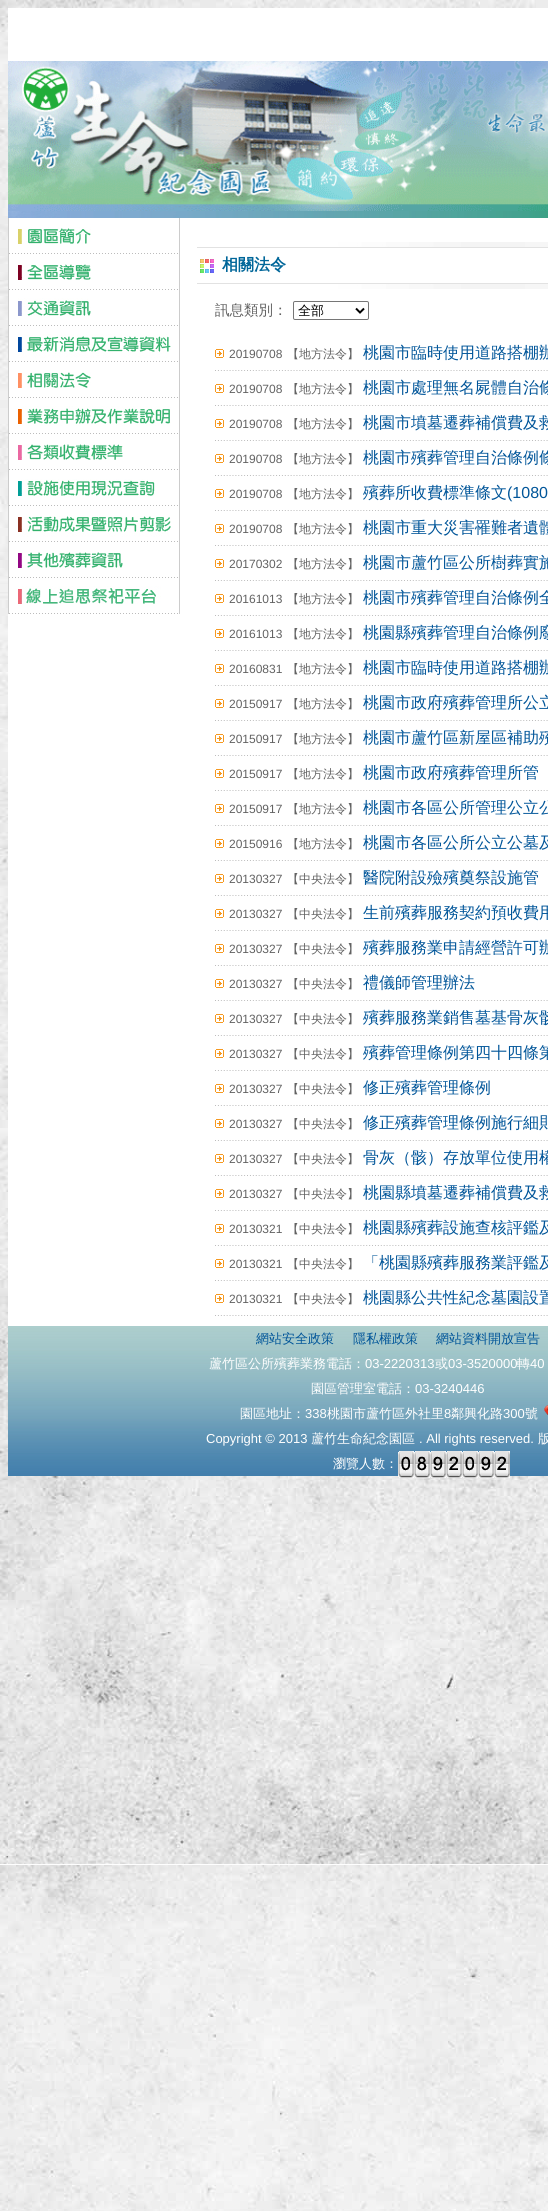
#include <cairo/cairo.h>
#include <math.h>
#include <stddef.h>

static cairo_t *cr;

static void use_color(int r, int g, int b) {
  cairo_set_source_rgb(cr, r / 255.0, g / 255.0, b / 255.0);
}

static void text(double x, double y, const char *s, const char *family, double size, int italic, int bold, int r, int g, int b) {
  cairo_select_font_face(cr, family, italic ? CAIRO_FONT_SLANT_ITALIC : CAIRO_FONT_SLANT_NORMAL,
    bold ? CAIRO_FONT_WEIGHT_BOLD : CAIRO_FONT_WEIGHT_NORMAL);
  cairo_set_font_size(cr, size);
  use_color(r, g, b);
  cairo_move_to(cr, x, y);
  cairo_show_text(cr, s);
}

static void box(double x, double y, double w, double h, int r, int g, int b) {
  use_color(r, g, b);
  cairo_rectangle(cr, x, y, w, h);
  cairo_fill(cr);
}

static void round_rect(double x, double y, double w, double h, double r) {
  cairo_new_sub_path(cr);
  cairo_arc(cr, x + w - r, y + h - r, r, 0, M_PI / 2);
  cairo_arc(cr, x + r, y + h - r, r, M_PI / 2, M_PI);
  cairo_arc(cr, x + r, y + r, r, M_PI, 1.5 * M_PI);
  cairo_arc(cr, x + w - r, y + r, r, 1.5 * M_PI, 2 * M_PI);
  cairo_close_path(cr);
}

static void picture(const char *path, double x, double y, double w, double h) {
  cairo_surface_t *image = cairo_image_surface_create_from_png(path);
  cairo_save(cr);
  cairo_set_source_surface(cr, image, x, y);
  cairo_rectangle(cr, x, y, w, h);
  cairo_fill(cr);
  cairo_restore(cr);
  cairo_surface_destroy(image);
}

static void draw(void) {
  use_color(255, 255, 255);
  cairo_paint(cr);
  picture("img_01.png", 0, 0, 548, 2211);
  box(8, 8, 540, 1318, 255, 255, 255);
  picture("img_02.png", 8, 61, 540, 150);
  picture("img_03.png", 8, 211, 540, 7);
  box(179, 218, 1, 396, 204, 204, 204);
  box(8, 218, 1, 396, 204, 204, 204);
  picture("img_04.png", 17, 227, 74, 17);
  picture("img_05.png", 9, 253, 169, 1);
  picture("img_06.png", 18, 264, 73, 16);
  picture("img_05.png", 9, 289, 169, 1);
  picture("img_07.png", 18, 298, 73, 18);
  picture("img_05.png", 9, 325, 169, 1);
  picture("img_08.png", 18, 334, 153, 24);
  picture("img_05.png", 9, 361, 169, 1);
  picture("img_09.png", 18, 372, 73, 16);
  picture("img_05.png", 9, 397, 169, 1);
  picture("img_10.png", 18, 406, 153, 20);
  picture("img_05.png", 9, 433, 169, 1);
  picture("img_11.png", 18, 444, 105, 16);
  picture("img_05.png", 9, 469, 169, 1);
  picture("img_12.png", 18, 479, 137, 17);
  picture("img_05.png", 9, 505, 169, 1);
  picture("img_13.png", 18, 516, 153, 21);
  picture("img_05.png", 9, 541, 169, 1);
  picture("img_14.png", 18, 550, 105, 18);
  picture("img_05.png", 9, 577, 169, 1);
  picture("img_15.png", 18, 586, 143, 18);
  picture("img_05.png", 9, 613, 169, 1);
  picture("img_16.png", 197, 242, 351, 6);
  picture("img_17.png", 200, 259, 14, 14);
  picture("img_18.png", 197, 283, 351, 6);
  round_rect(293.5, 301.5, 75, 18, 1.5);
  use_color(118, 118, 118);
  cairo_set_line_width(cr, 1);
  cairo_stroke(cr);
  cairo_new_path(cr);
  cairo_move_to(cr, 356, 308.5);
  cairo_line_to(cr, 360, 312.5);
  cairo_line_to(cr, 364, 308.5);
  use_color(0, 0, 0);
  cairo_set_line_width(cr, 2);
  cairo_stroke(cr);
  picture("img_19.png", 215, 349, 9, 9);
  picture("img_20.png", 215, 370, 333, 1);
  picture("img_19.png", 215, 384, 9, 9);
  picture("img_20.png", 215, 405, 333, 1);
  picture("img_19.png", 215, 419, 9, 9);
  picture("img_20.png", 215, 440, 333, 1);
  picture("img_19.png", 215, 454, 9, 9);
  picture("img_20.png", 215, 475, 333, 1);
  picture("img_19.png", 215, 489, 9, 9);
  picture("img_20.png", 215, 510, 333, 1);
  picture("img_19.png", 215, 524, 9, 9);
  picture("img_20.png", 215, 545, 333, 1);
  picture("img_19.png", 215, 559, 9, 9);
  picture("img_20.png", 215, 580, 333, 1);
  picture("img_19.png", 215, 594, 9, 9);
  picture("img_20.png", 215, 615, 333, 1);
  picture("img_19.png", 215, 629, 9, 9);
  picture("img_20.png", 215, 650, 333, 1);
  picture("img_19.png", 215, 664, 9, 9);
  picture("img_20.png", 215, 685, 333, 1);
  picture("img_19.png", 215, 699, 9, 9);
  picture("img_20.png", 215, 720, 333, 1);
  picture("img_19.png", 215, 734, 9, 9);
  picture("img_20.png", 215, 755, 333, 1);
  picture("img_19.png", 215, 769, 9, 9);
  picture("img_20.png", 215, 790, 333, 1);
  picture("img_19.png", 215, 804, 9, 9);
  picture("img_20.png", 215, 825, 333, 1);
  picture("img_19.png", 215, 839, 9, 9);
  picture("img_20.png", 215, 860, 333, 1);
  picture("img_19.png", 215, 874, 9, 9);
  picture("img_20.png", 215, 895, 333, 1);
  picture("img_19.png", 215, 909, 9, 9);
  picture("img_20.png", 215, 930, 333, 1);
  picture("img_19.png", 215, 944, 9, 9);
  picture("img_20.png", 215, 965, 333, 1);
  picture("img_19.png", 215, 979, 9, 9);
  picture("img_20.png", 215, 1000, 333, 1);
  picture("img_19.png", 215, 1014, 9, 9);
  picture("img_20.png", 215, 1035, 333, 1);
  picture("img_19.png", 215, 1049, 9, 9);
  picture("img_20.png", 215, 1070, 333, 1);
  picture("img_19.png", 215, 1084, 9, 9);
  picture("img_20.png", 215, 1105, 333, 1);
  picture("img_19.png", 215, 1119, 9, 9);
  picture("img_20.png", 215, 1140, 333, 1);
  picture("img_19.png", 215, 1154, 9, 9);
  picture("img_20.png", 215, 1175, 333, 1);
  picture("img_19.png", 215, 1189, 9, 9);
  picture("img_20.png", 215, 1210, 333, 1);
  picture("img_19.png", 215, 1224, 9, 9);
  picture("img_20.png", 215, 1245, 333, 1);
  picture("img_19.png", 215, 1259, 9, 9);
  picture("img_20.png", 215, 1280, 333, 1);
  picture("img_19.png", 215, 1294, 9, 9);
  picture("img_20.png", 215, 1315, 333, 1);
  picture("img_21.png", 8, 1326, 540, 150);
  picture("img_22.png", 544, 1405, 4, 10);
  picture("img_23.png", 398, 1451, 16, 27);
  picture("img_24.png", 414, 1451, 16, 27);
  picture("img_25.png", 430, 1451, 16, 27);
  picture("img_26.png", 446, 1451, 16, 27);
  picture("img_23.png", 462, 1451, 16, 27);
  picture("img_27.png", 478, 1451, 16, 27);
  picture("img_26.png", 494, 1451, 16, 27);
  text(222, 270, "相關法令", "WenQuanYi Zen Hei", 16, 0, 1, 0, 102, 153);
  text(215, 315, "訊息類別：", "WenQuanYi Zen Hei Medium", 14.5, 0, 0, 98, 98, 98);
  text(298, 315, "全部", "WenQuanYi Zen Hei Medium", 13, 0, 0, 0, 0, 0);
  text(229, 358, "20190708", "Liberation Sans", 12, 0, 0, 98, 98, 98);
  text(287, 358, "【地方法令】", "WenQuanYi Zen Hei Medium", 12, 0, 0, 98, 98, 98);
  text(363, 358, "桃園市臨時使用道路搭棚辦", "WenQuanYi Zen Hei Medium", 16, 0, 0, 0, 85, 153);
  text(229, 393, "20190708", "Liberation Sans", 12, 0, 0, 98, 98, 98);
  text(287, 393, "【地方法令】", "WenQuanYi Zen Hei Medium", 12, 0, 0, 98, 98, 98);
  text(363, 393, "桃園市處理無名屍體自治條", "WenQuanYi Zen Hei Medium", 16, 0, 0, 0, 85, 153);
  text(229, 428, "20190708", "Liberation Sans", 12, 0, 0, 98, 98, 98);
  text(287, 428, "【地方法令】", "WenQuanYi Zen Hei Medium", 12, 0, 0, 98, 98, 98);
  text(363, 428, "桃園市墳墓遷葬補償費及救", "WenQuanYi Zen Hei Medium", 16, 0, 0, 0, 85, 153);
  text(229, 463, "20190708", "Liberation Sans", 12, 0, 0, 98, 98, 98);
  text(287, 463, "【地方法令】", "WenQuanYi Zen Hei Medium", 12, 0, 0, 98, 98, 98);
  text(363, 463, "桃園市殯葬管理自治條例條", "WenQuanYi Zen Hei Medium", 16, 0, 0, 0, 85, 153);
  text(229, 498, "20190708", "Liberation Sans", 12, 0, 0, 98, 98, 98);
  text(287, 498, "【地方法令】", "WenQuanYi Zen Hei Medium", 12, 0, 0, 98, 98, 98);
  text(363, 498, "殯葬所收費標準條文", "WenQuanYi Zen Hei Medium", 16, 0, 0, 0, 85, 153);
  text(507, 498, "(1080", "Liberation Sans", 16, 0, 0, 0, 85, 153);
  text(229, 533, "20190708", "Liberation Sans", 12, 0, 0, 98, 98, 98);
  text(287, 533, "【地方法令】", "WenQuanYi Zen Hei Medium", 12, 0, 0, 98, 98, 98);
  text(363, 533, "桃園市重大災害罹難者遺體", "WenQuanYi Zen Hei Medium", 16, 0, 0, 0, 85, 153);
  text(229, 568, "20170302", "Liberation Sans", 12, 0, 0, 98, 98, 98);
  text(287, 568, "【地方法令】", "WenQuanYi Zen Hei Medium", 12, 0, 0, 98, 98, 98);
  text(363, 568, "桃園市蘆竹區公所樹葬實施", "WenQuanYi Zen Hei Medium", 16, 0, 0, 0, 85, 153);
  text(229, 603, "20161013", "Liberation Sans", 12, 0, 0, 98, 98, 98);
  text(287, 603, "【地方法令】", "WenQuanYi Zen Hei Medium", 12, 0, 0, 98, 98, 98);
  text(363, 603, "桃園市殯葬管理自治條例全", "WenQuanYi Zen Hei Medium", 16, 0, 0, 0, 85, 153);
  text(229, 638, "20161013", "Liberation Sans", 12, 0, 0, 98, 98, 98);
  text(287, 638, "【地方法令】", "WenQuanYi Zen Hei Medium", 12, 0, 0, 98, 98, 98);
  text(363, 638, "桃園縣殯葬管理自治條例廢", "WenQuanYi Zen Hei Medium", 16, 0, 0, 0, 85, 153);
  text(229, 673, "20160831", "Liberation Sans", 12, 0, 0, 98, 98, 98);
  text(287, 673, "【地方法令】", "WenQuanYi Zen Hei Medium", 12, 0, 0, 98, 98, 98);
  text(363, 673, "桃園市臨時使用道路搭棚辦", "WenQuanYi Zen Hei Medium", 16, 0, 0, 0, 85, 153);
  text(229, 708, "20150917", "Liberation Sans", 12, 0, 0, 98, 98, 98);
  text(287, 708, "【地方法令】", "WenQuanYi Zen Hei Medium", 12, 0, 0, 98, 98, 98);
  text(363, 708, "桃園市政府殯葬管理所公立", "WenQuanYi Zen Hei Medium", 16, 0, 0, 0, 85, 153);
  text(229, 743, "20150917", "Liberation Sans", 12, 0, 0, 98, 98, 98);
  text(287, 743, "【地方法令】", "WenQuanYi Zen Hei Medium", 12, 0, 0, 98, 98, 98);
  text(363, 743, "桃園市蘆竹區新屋區補助殯", "WenQuanYi Zen Hei Medium", 16, 0, 0, 0, 85, 153);
  text(229, 778, "20150917", "Liberation Sans", 12, 0, 0, 98, 98, 98);
  text(287, 778, "【地方法令】", "WenQuanYi Zen Hei Medium", 12, 0, 0, 98, 98, 98);
  text(363, 778, "桃園市政府殯葬管理所管", "WenQuanYi Zen Hei Medium", 16, 0, 0, 0, 85, 153);
  text(229, 813, "20150917", "Liberation Sans", 12, 0, 0, 98, 98, 98);
  text(287, 813, "【地方法令】", "WenQuanYi Zen Hei Medium", 12, 0, 0, 98, 98, 98);
  text(363, 813, "桃園市各區公所管理公立公", "WenQuanYi Zen Hei Medium", 16, 0, 0, 0, 85, 153);
  text(229, 848, "20150916", "Liberation Sans", 12, 0, 0, 98, 98, 98);
  text(287, 848, "【地方法令】", "WenQuanYi Zen Hei Medium", 12, 0, 0, 98, 98, 98);
  text(363, 848, "桃園市各區公所公立公墓及", "WenQuanYi Zen Hei Medium", 16, 0, 0, 0, 85, 153);
  text(229, 883, "20130327", "Liberation Sans", 12, 0, 0, 98, 98, 98);
  text(287, 883, "【中央法令】", "WenQuanYi Zen Hei Medium", 12, 0, 0, 98, 98, 98);
  text(363, 883, "醫院附設殮殯奠祭設施管", "WenQuanYi Zen Hei Medium", 16, 0, 0, 0, 85, 153);
  text(229, 918, "20130327", "Liberation Sans", 12, 0, 0, 98, 98, 98);
  text(287, 918, "【中央法令】", "WenQuanYi Zen Hei Medium", 12, 0, 0, 98, 98, 98);
  text(363, 918, "生前殯葬服務契約預收費用", "WenQuanYi Zen Hei Medium", 16, 0, 0, 0, 85, 153);
  text(229, 953, "20130327", "Liberation Sans", 12, 0, 0, 98, 98, 98);
  text(287, 953, "【中央法令】", "WenQuanYi Zen Hei Medium", 12, 0, 0, 98, 98, 98);
  text(363, 953, "殯葬服務業申請經營許可辦", "WenQuanYi Zen Hei Medium", 16, 0, 0, 0, 85, 153);
  text(229, 988, "20130327", "Liberation Sans", 12, 0, 0, 98, 98, 98);
  text(287, 988, "【中央法令】", "WenQuanYi Zen Hei Medium", 12, 0, 0, 98, 98, 98);
  text(363, 988, "禮儀師管理辦法", "WenQuanYi Zen Hei Medium", 16, 0, 0, 0, 85, 153);
  text(229, 1023, "20130327", "Liberation Sans", 12, 0, 0, 98, 98, 98);
  text(287, 1023, "【中央法令】", "WenQuanYi Zen Hei Medium", 12, 0, 0, 98, 98, 98);
  text(363, 1023, "殯葬服務業銷售墓基骨灰骸", "WenQuanYi Zen Hei Medium", 16, 0, 0, 0, 85, 153);
  text(229, 1058, "20130327", "Liberation Sans", 12, 0, 0, 98, 98, 98);
  text(287, 1058, "【中央法令】", "WenQuanYi Zen Hei Medium", 12, 0, 0, 98, 98, 98);
  text(363, 1058, "殯葬管理條例第四十四條第", "WenQuanYi Zen Hei Medium", 16, 0, 0, 0, 85, 153);
  text(229, 1093, "20130327", "Liberation Sans", 12, 0, 0, 98, 98, 98);
  text(287, 1093, "【中央法令】", "WenQuanYi Zen Hei Medium", 12, 0, 0, 98, 98, 98);
  text(363, 1093, "修正殯葬管理條例", "WenQuanYi Zen Hei Medium", 16, 0, 0, 0, 85, 153);
  text(229, 1128, "20130327", "Liberation Sans", 12, 0, 0, 98, 98, 98);
  text(287, 1128, "【中央法令】", "WenQuanYi Zen Hei Medium", 12, 0, 0, 98, 98, 98);
  text(363, 1128, "修正殯葬管理條例施行細則", "WenQuanYi Zen Hei Medium", 16, 0, 0, 0, 85, 153);
  text(229, 1163, "20130327", "Liberation Sans", 12, 0, 0, 98, 98, 98);
  text(287, 1163, "【中央法令】", "WenQuanYi Zen Hei Medium", 12, 0, 0, 98, 98, 98);
  text(363, 1163, "骨灰（骸）存放單位使用權", "WenQuanYi Zen Hei Medium", 16, 0, 0, 0, 85, 153);
  text(229, 1198, "20130327", "Liberation Sans", 12, 0, 0, 98, 98, 98);
  text(287, 1198, "【中央法令】", "WenQuanYi Zen Hei Medium", 12, 0, 0, 98, 98, 98);
  text(363, 1198, "桃園縣墳墓遷葬補償費及救", "WenQuanYi Zen Hei Medium", 16, 0, 0, 0, 85, 153);
  text(229, 1233, "20130321", "Liberation Sans", 12, 0, 0, 98, 98, 98);
  text(287, 1233, "【中央法令】", "WenQuanYi Zen Hei Medium", 12, 0, 0, 98, 98, 98);
  text(363, 1233, "桃園縣殯葬設施查核評鑑及", "WenQuanYi Zen Hei Medium", 16, 0, 0, 0, 85, 153);
  text(229, 1268, "20130321", "Liberation Sans", 12, 0, 0, 98, 98, 98);
  text(287, 1268, "【中央法令】", "WenQuanYi Zen Hei Medium", 12, 0, 0, 98, 98, 98);
  text(363, 1268, "「桃園縣殯葬服務業評鑑及", "WenQuanYi Zen Hei Medium", 16, 0, 0, 0, 85, 153);
  text(229, 1303, "20130321", "Liberation Sans", 12, 0, 0, 98, 98, 98);
  text(287, 1303, "【中央法令】", "WenQuanYi Zen Hei Medium", 12, 0, 0, 98, 98, 98);
  text(363, 1303, "桃園縣公共性紀念墓園設置", "WenQuanYi Zen Hei Medium", 16, 0, 0, 0, 85, 153);
  text(256, 1343, "網站安全政策", "WenQuanYi Zen Hei Medium", 13, 0, 0, 0, 85, 153);
  text(353, 1343, "隱私權政策", "WenQuanYi Zen Hei Medium", 13, 0, 0, 0, 85, 153);
  text(436, 1343, "網站資料開放宣告", "WenQuanYi Zen Hei Medium", 13, 0, 0, 0, 85, 153);
  text(209, 1368, "蘆竹區公所殯葬業務電話：", "WenQuanYi Zen Hei Medium", 13, 0, 0, 255, 255, 255);
  text(365, 1368, "03-2220313", "Liberation Sans", 13, 0, 0, 255, 255, 255);
  text(435, 1368, "或", "WenQuanYi Zen Hei Medium", 13, 0, 0, 255, 255, 255);
  text(448, 1368, "03-3520000", "Liberation Sans", 13, 0, 0, 255, 255, 255);
  text(517, 1368, "轉", "WenQuanYi Zen Hei Medium", 13, 0, 0, 255, 255, 255);
  text(530, 1368, "40", "Liberation Sans", 13, 0, 0, 255, 255, 255);
  text(311, 1393, "園區管理室電話：", "WenQuanYi Zen Hei Medium", 13, 0, 0, 255, 255, 255);
  text(415, 1393, "03-3240446", "Liberation Sans", 13, 0, 0, 255, 255, 255);
  text(240, 1418, "園區地址：", "WenQuanYi Zen Hei Medium", 13, 0, 0, 255, 255, 255);
  text(305, 1418, "338", "Liberation Sans", 13, 0, 0, 255, 255, 255);
  text(327, 1418, "桃園市蘆竹區外社里", "WenQuanYi Zen Hei Medium", 13, 0, 0, 255, 255, 255);
  text(444, 1418, "8", "Liberation Sans", 13, 0, 0, 255, 255, 255);
  text(451, 1418, "鄰興化路", "WenQuanYi Zen Hei Medium", 13, 0, 0, 255, 255, 255);
  text(503, 1418, "300", "Liberation Sans", 13, 0, 0, 255, 255, 255);
  text(525, 1418, "號", "WenQuanYi Zen Hei Medium", 13, 0, 0, 255, 255, 255);
  text(206, 1443, "Copyright © 2013", "Liberation Sans", 13, 0, 0, 255, 255, 255);
  text(311, 1443, "蘆竹生命紀念園區", "WenQuanYi Zen Hei Medium", 13, 0, 0, 255, 255, 255);
  text(419, 1443, ". All rights reserved.", "Liberation Sans", 13, 0, 0, 255, 255, 255);
  text(538, 1443, "版", "WenQuanYi Zen Hei Medium", 13, 0, 0, 255, 255, 255);
  text(333, 1468, "瀏覽人數：", "WenQuanYi Zen Hei Medium", 13, 0, 0, 255, 255, 255);
}

int main(void) {
  cairo_surface_t *surface = cairo_image_surface_create(CAIRO_FORMAT_RGB24, 548, 2211);
  cr = cairo_create(surface);
  cairo_font_options_t *options = cairo_font_options_create();
  cairo_font_options_set_hint_metrics(options, CAIRO_HINT_METRICS_OFF);
  cairo_font_options_set_hint_style(options, CAIRO_HINT_STYLE_NONE);
  cairo_set_font_options(cr, options);
  cairo_set_miter_limit(cr, 4);
  draw();
  cairo_surface_write_to_png(surface, "out.png");
  cairo_font_options_destroy(options);
  cairo_destroy(cr);
  cairo_surface_destroy(surface);
  return 0;
}
